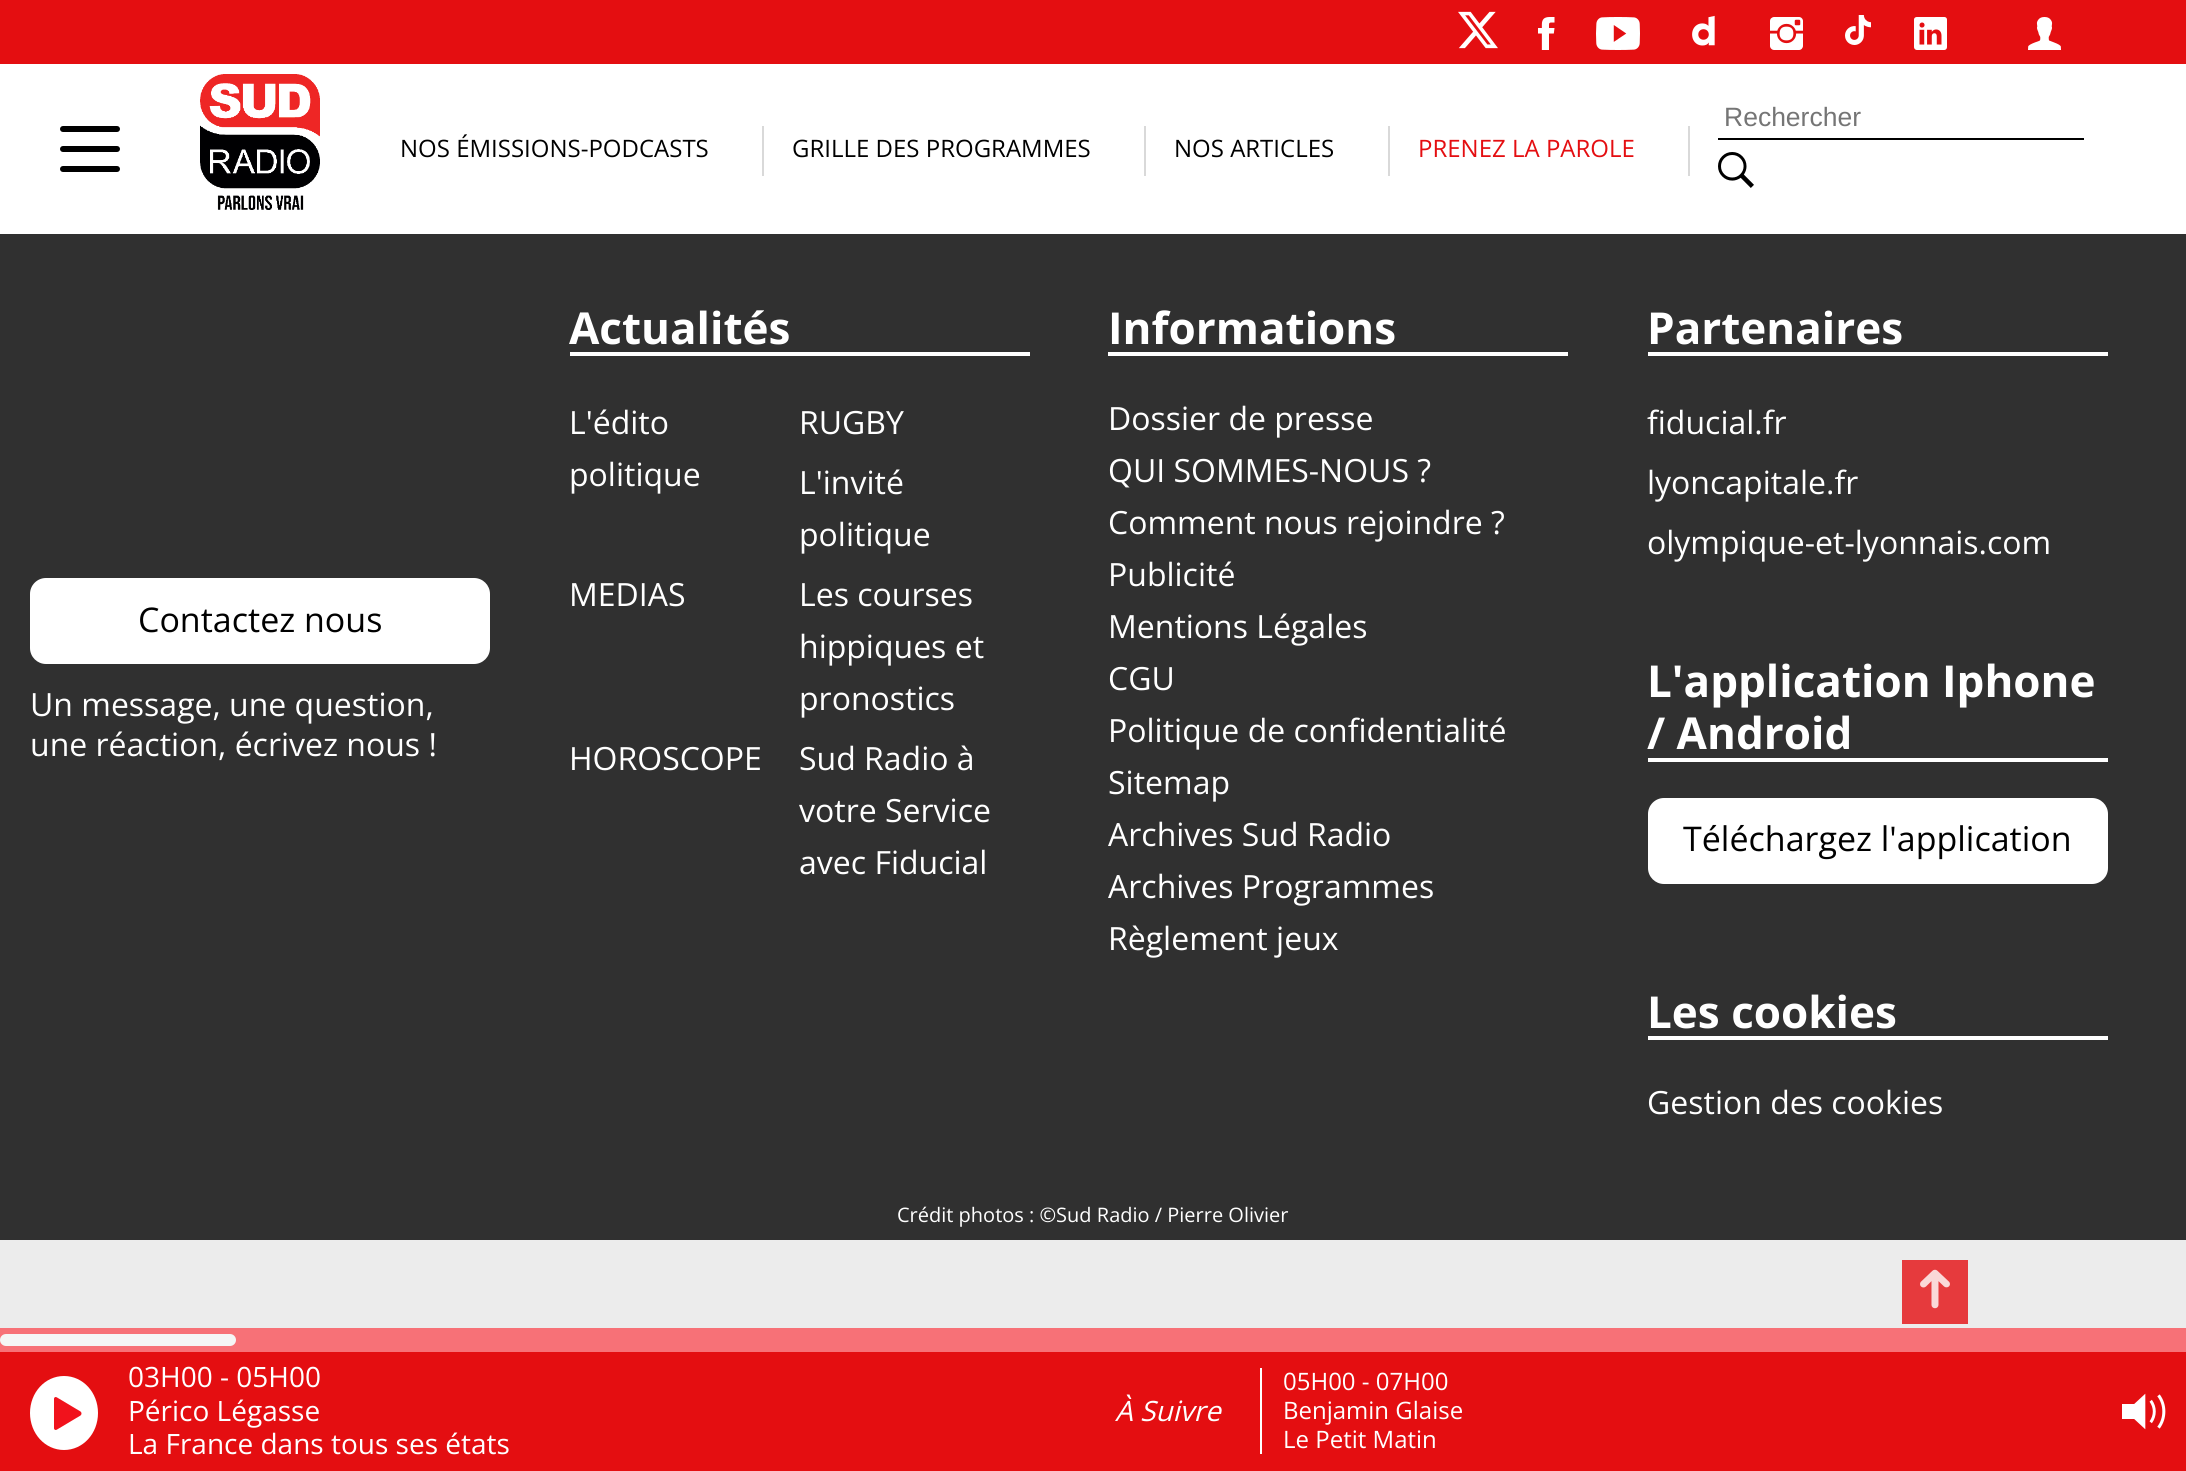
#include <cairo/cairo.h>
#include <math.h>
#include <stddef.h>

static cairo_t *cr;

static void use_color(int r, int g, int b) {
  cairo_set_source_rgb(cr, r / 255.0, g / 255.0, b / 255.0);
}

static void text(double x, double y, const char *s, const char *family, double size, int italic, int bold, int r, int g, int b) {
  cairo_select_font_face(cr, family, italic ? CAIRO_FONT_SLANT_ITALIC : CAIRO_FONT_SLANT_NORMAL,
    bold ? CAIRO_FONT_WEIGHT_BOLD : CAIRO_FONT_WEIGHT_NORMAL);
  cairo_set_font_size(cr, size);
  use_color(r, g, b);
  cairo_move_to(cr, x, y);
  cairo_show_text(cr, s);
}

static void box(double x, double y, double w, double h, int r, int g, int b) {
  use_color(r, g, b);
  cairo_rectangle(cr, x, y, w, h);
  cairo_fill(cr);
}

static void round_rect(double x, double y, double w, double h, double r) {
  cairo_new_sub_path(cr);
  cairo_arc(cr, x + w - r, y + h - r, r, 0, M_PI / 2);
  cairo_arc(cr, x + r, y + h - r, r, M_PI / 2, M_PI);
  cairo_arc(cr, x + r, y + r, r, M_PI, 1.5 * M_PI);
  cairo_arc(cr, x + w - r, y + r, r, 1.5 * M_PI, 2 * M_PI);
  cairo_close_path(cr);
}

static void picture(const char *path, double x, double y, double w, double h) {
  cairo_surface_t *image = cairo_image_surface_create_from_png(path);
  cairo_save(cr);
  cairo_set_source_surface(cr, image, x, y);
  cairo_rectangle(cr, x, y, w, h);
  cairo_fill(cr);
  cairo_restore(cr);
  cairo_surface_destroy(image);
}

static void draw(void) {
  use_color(236, 236, 236);
  cairo_paint(cr);
  box(0, 0, 2186, 64, 228, 14, 17);
  picture("img_01.png", 1458, 11, 40, 38);
  picture("img_02.png", 1538, 17, 17, 33);
  picture("img_03.png", 1596, 17, 44, 33);
  picture("img_04.png", 1692, 15, 23, 31);
  picture("img_05.png", 1770, 17, 33, 33);
  picture("img_06.png", 1845, 15, 26, 30);
  picture("img_07.png", 1914, 17, 33, 33);
  picture("img_08.png", 2028, 17, 33, 33);
  box(0, 64, 2186, 170, 255, 255, 255);
  picture("img_09.png", 200, 74, 120, 136);
  box(1718, 138, 366, 2, 0, 0, 0);
  picture("img_10.png", 1718, 152, 36, 36);
  round_rect(60, 126, 60, 6, 3);
  cairo_fill(cr);
  round_rect(60, 146, 60, 6, 3);
  cairo_fill(cr);
  round_rect(60, 166, 60, 6, 3);
  cairo_fill(cr);
  box(762, 126, 2, 50, 217, 217, 217);
  box(1144, 126, 2, 50, 217, 217, 217);
  box(1388, 126, 2, 50, 217, 217, 217);
  box(1688, 126, 2, 50, 217, 217, 217);
  box(0, 234, 2186, 1006, 48, 48, 48);
  box(570, 352, 460, 4, 255, 255, 255);
  box(1108, 352, 460, 4, 255, 255, 255);
  box(1648, 352, 460, 4, 255, 255, 255);
  round_rect(30, 578, 460, 86, 16);
  cairo_fill(cr);
  box(1648, 758, 460, 4, 255, 255, 255);
  round_rect(1648, 798, 460, 86, 16);
  cairo_fill(cr);
  box(1648, 1036, 460, 4, 255, 255, 255);
  box(1902, 1260, 66, 64, 230, 58, 61);
  picture("img_11.png", 1920, 1269, 30, 40);
  box(0, 1352, 2186, 119, 228, 14, 17);
  box(0, 1328, 2186, 24, 247, 113, 119);
  use_color(245, 245, 245);
  round_rect(0, 1334, 236, 12, 6);
  cairo_fill(cr);
  use_color(255, 255, 255);
  cairo_new_path(cr);
  cairo_move_to(cr, 64, 1376);
  cairo_curve_to(cr, 83, 1376, 98, 1392.5, 98, 1413);
  cairo_curve_to(cr, 98, 1433.5, 83, 1450, 64, 1450);
  cairo_curve_to(cr, 45, 1450, 30, 1433.5, 30, 1413);
  cairo_curve_to(cr, 30, 1392.5, 45, 1376, 64, 1376);
  cairo_close_path(cr);
  cairo_fill(cr);
  picture("img_12.png", 54, 1397, 28, 33);
  box(1260, 1368, 2, 86, 255, 255, 255);
  picture("img_13.png", 2122, 1393, 44, 37);
  text(1724, 126, "Rechercher", "Liberation Sans", 26.5, 0, 0, 117, 117, 117);
  text(400, 157, "NOS ÉMISSIONS-PODCASTS", "Open Sans", 24, 0, 0, 0, 0, 0);
  text(792, 157, "GRILLE DES PROGRAMMES", "Open Sans", 24, 0, 0, 0, 0, 0);
  text(1174, 157, "NOS ARTICLES", "Open Sans", 24, 0, 0, 0, 0, 0);
  text(1418, 157, "PRENEZ LA PAROLE", "Open Sans", 24, 0, 0, 228, 14, 17);
  text(569, 344, "Actualités", "Open Sans", 44, 0, 1, 255, 255, 255);
  text(569, 434, "L'édito", "Open Sans", 32, 0, 0, 255, 255, 255);
  text(569, 486, "politique", "Open Sans", 32, 0, 0, 255, 255, 255);
  text(799, 434, "RUGBY", "Open Sans", 32, 0, 0, 255, 255, 255);
  text(799, 494, "L'invité", "Open Sans", 32, 0, 0, 255, 255, 255);
  text(799, 546, "politique", "Open Sans", 32, 0, 0, 255, 255, 255);
  text(569, 606, "MEDIAS", "Open Sans", 32, 0, 0, 255, 255, 255);
  text(799, 606, "Les courses", "Open Sans", 32, 0, 0, 255, 255, 255);
  text(799, 658, "hippiques et", "Open Sans", 32, 0, 0, 255, 255, 255);
  text(799, 710, "pronostics", "Open Sans", 32, 0, 0, 255, 255, 255);
  text(569, 770, "HOROSCOPE", "Open Sans", 32, 0, 0, 255, 255, 255);
  text(799, 770, "Sud Radio à", "Open Sans", 32, 0, 0, 255, 255, 255);
  text(799, 822, "votre Service", "Open Sans", 32, 0, 0, 255, 255, 255);
  text(799, 874, "avec Fiducial", "Open Sans", 32, 0, 0, 255, 255, 255);
  text(1108, 344, "Informations", "Open Sans", 44, 0, 1, 255, 255, 255);
  text(1108, 430, "Dossier de presse", "Open Sans", 32, 0, 0, 255, 255, 255);
  text(1108, 482, "QUI SOMMES-NOUS ?", "Open Sans", 32, 0, 0, 255, 255, 255);
  text(1108, 534, "Comment nous rejoindre ?", "Open Sans", 32, 0, 0, 255, 255, 255);
  text(1108, 586, "Publicité", "Open Sans", 32, 0, 0, 255, 255, 255);
  text(1108, 638, "Mentions Légales", "Open Sans", 32, 0, 0, 255, 255, 255);
  text(1108, 690, "CGU", "Open Sans", 32, 0, 0, 255, 255, 255);
  text(1108, 742, "Politique de confidentialité", "Open Sans", 32, 0, 0, 255, 255, 255);
  text(1108, 794, "Sitemap", "Open Sans", 32, 0, 0, 255, 255, 255);
  text(1108, 846, "Archives Sud Radio", "Open Sans", 32, 0, 0, 255, 255, 255);
  text(1108, 898, "Archives Programmes", "Open Sans", 32, 0, 0, 255, 255, 255);
  text(1108, 950, "Règlement jeux", "Open Sans", 32, 0, 0, 255, 255, 255);
  text(1647, 344, "Partenaires", "Open Sans", 44, 0, 1, 255, 255, 255);
  text(1647, 434, "fiducial.fr", "Open Sans", 32, 0, 0, 255, 255, 255);
  text(1647, 494, "lyoncapitale.fr", "Open Sans", 32, 0, 0, 255, 255, 255);
  text(1647, 554, "olympique-et-lyonnais.com", "Open Sans", 32, 0, 0, 255, 255, 255);
  text(138, 632, "Contactez nous", "Open Sans", 34, 0, 0, 0, 0, 0);
  text(30, 716, "Un message, une question,", "Open Sans", 32, 0, 0, 255, 255, 255);
  text(30, 756, "une réaction, écrivez nous !", "Open Sans", 32, 0, 0, 255, 255, 255);
  text(1647, 697, "L'application Iphone", "Open Sans", 44, 0, 1, 255, 255, 255);
  text(1647, 749, "/ Android", "Open Sans", 44, 0, 1, 255, 255, 255);
  text(1683, 851, "Téléchargez l'application", "Open Sans", 34, 0, 0, 0, 0, 0);
  text(1647, 1028, "Les cookies", "Open Sans", 44, 0, 1, 255, 255, 255);
  text(1647, 1114, "Gestion des cookies", "Open Sans", 32, 0, 0, 255, 255, 255);
  text(897, 1222, "Crédit photos : ©Sud Radio / Pierre Olivier", "Open Sans", 20, 0, 0, 255, 255, 255);
  text(128, 1387, "03H00 - 05H00", "Open Sans", 28, 0, 0, 255, 255, 255);
  text(128, 1421, "Périco Légasse", "Open Sans", 28, 0, 0, 255, 255, 255);
  text(128, 1454, "La France dans tous ses états", "Open Sans", 28, 0, 0, 255, 255, 255);
  text(1115, 1421, "À Suivre", "Open Sans", 28, 1, 0, 255, 255, 255);
  text(1283, 1390, "05H00 - 07H00", "Open Sans", 24, 0, 0, 255, 255, 255);
  text(1283, 1419, "Benjamin Glaise", "Open Sans", 24, 0, 0, 255, 255, 255);
  text(1283, 1448, "Le Petit Matin", "Open Sans", 24, 0, 0, 255, 255, 255);
}

int main(void) {
  cairo_surface_t *surface = cairo_image_surface_create(CAIRO_FORMAT_RGB24, 2186, 1471);
  cr = cairo_create(surface);
  cairo_font_options_t *options = cairo_font_options_create();
  cairo_font_options_set_hint_metrics(options, CAIRO_HINT_METRICS_OFF);
  cairo_font_options_set_hint_style(options, CAIRO_HINT_STYLE_NONE);
  cairo_set_font_options(cr, options);
  cairo_set_miter_limit(cr, 4);
  draw();
  cairo_surface_write_to_png(surface, "out.png");
  cairo_font_options_destroy(options);
  cairo_destroy(cr);
  cairo_surface_destroy(surface);
  return 0;
}
